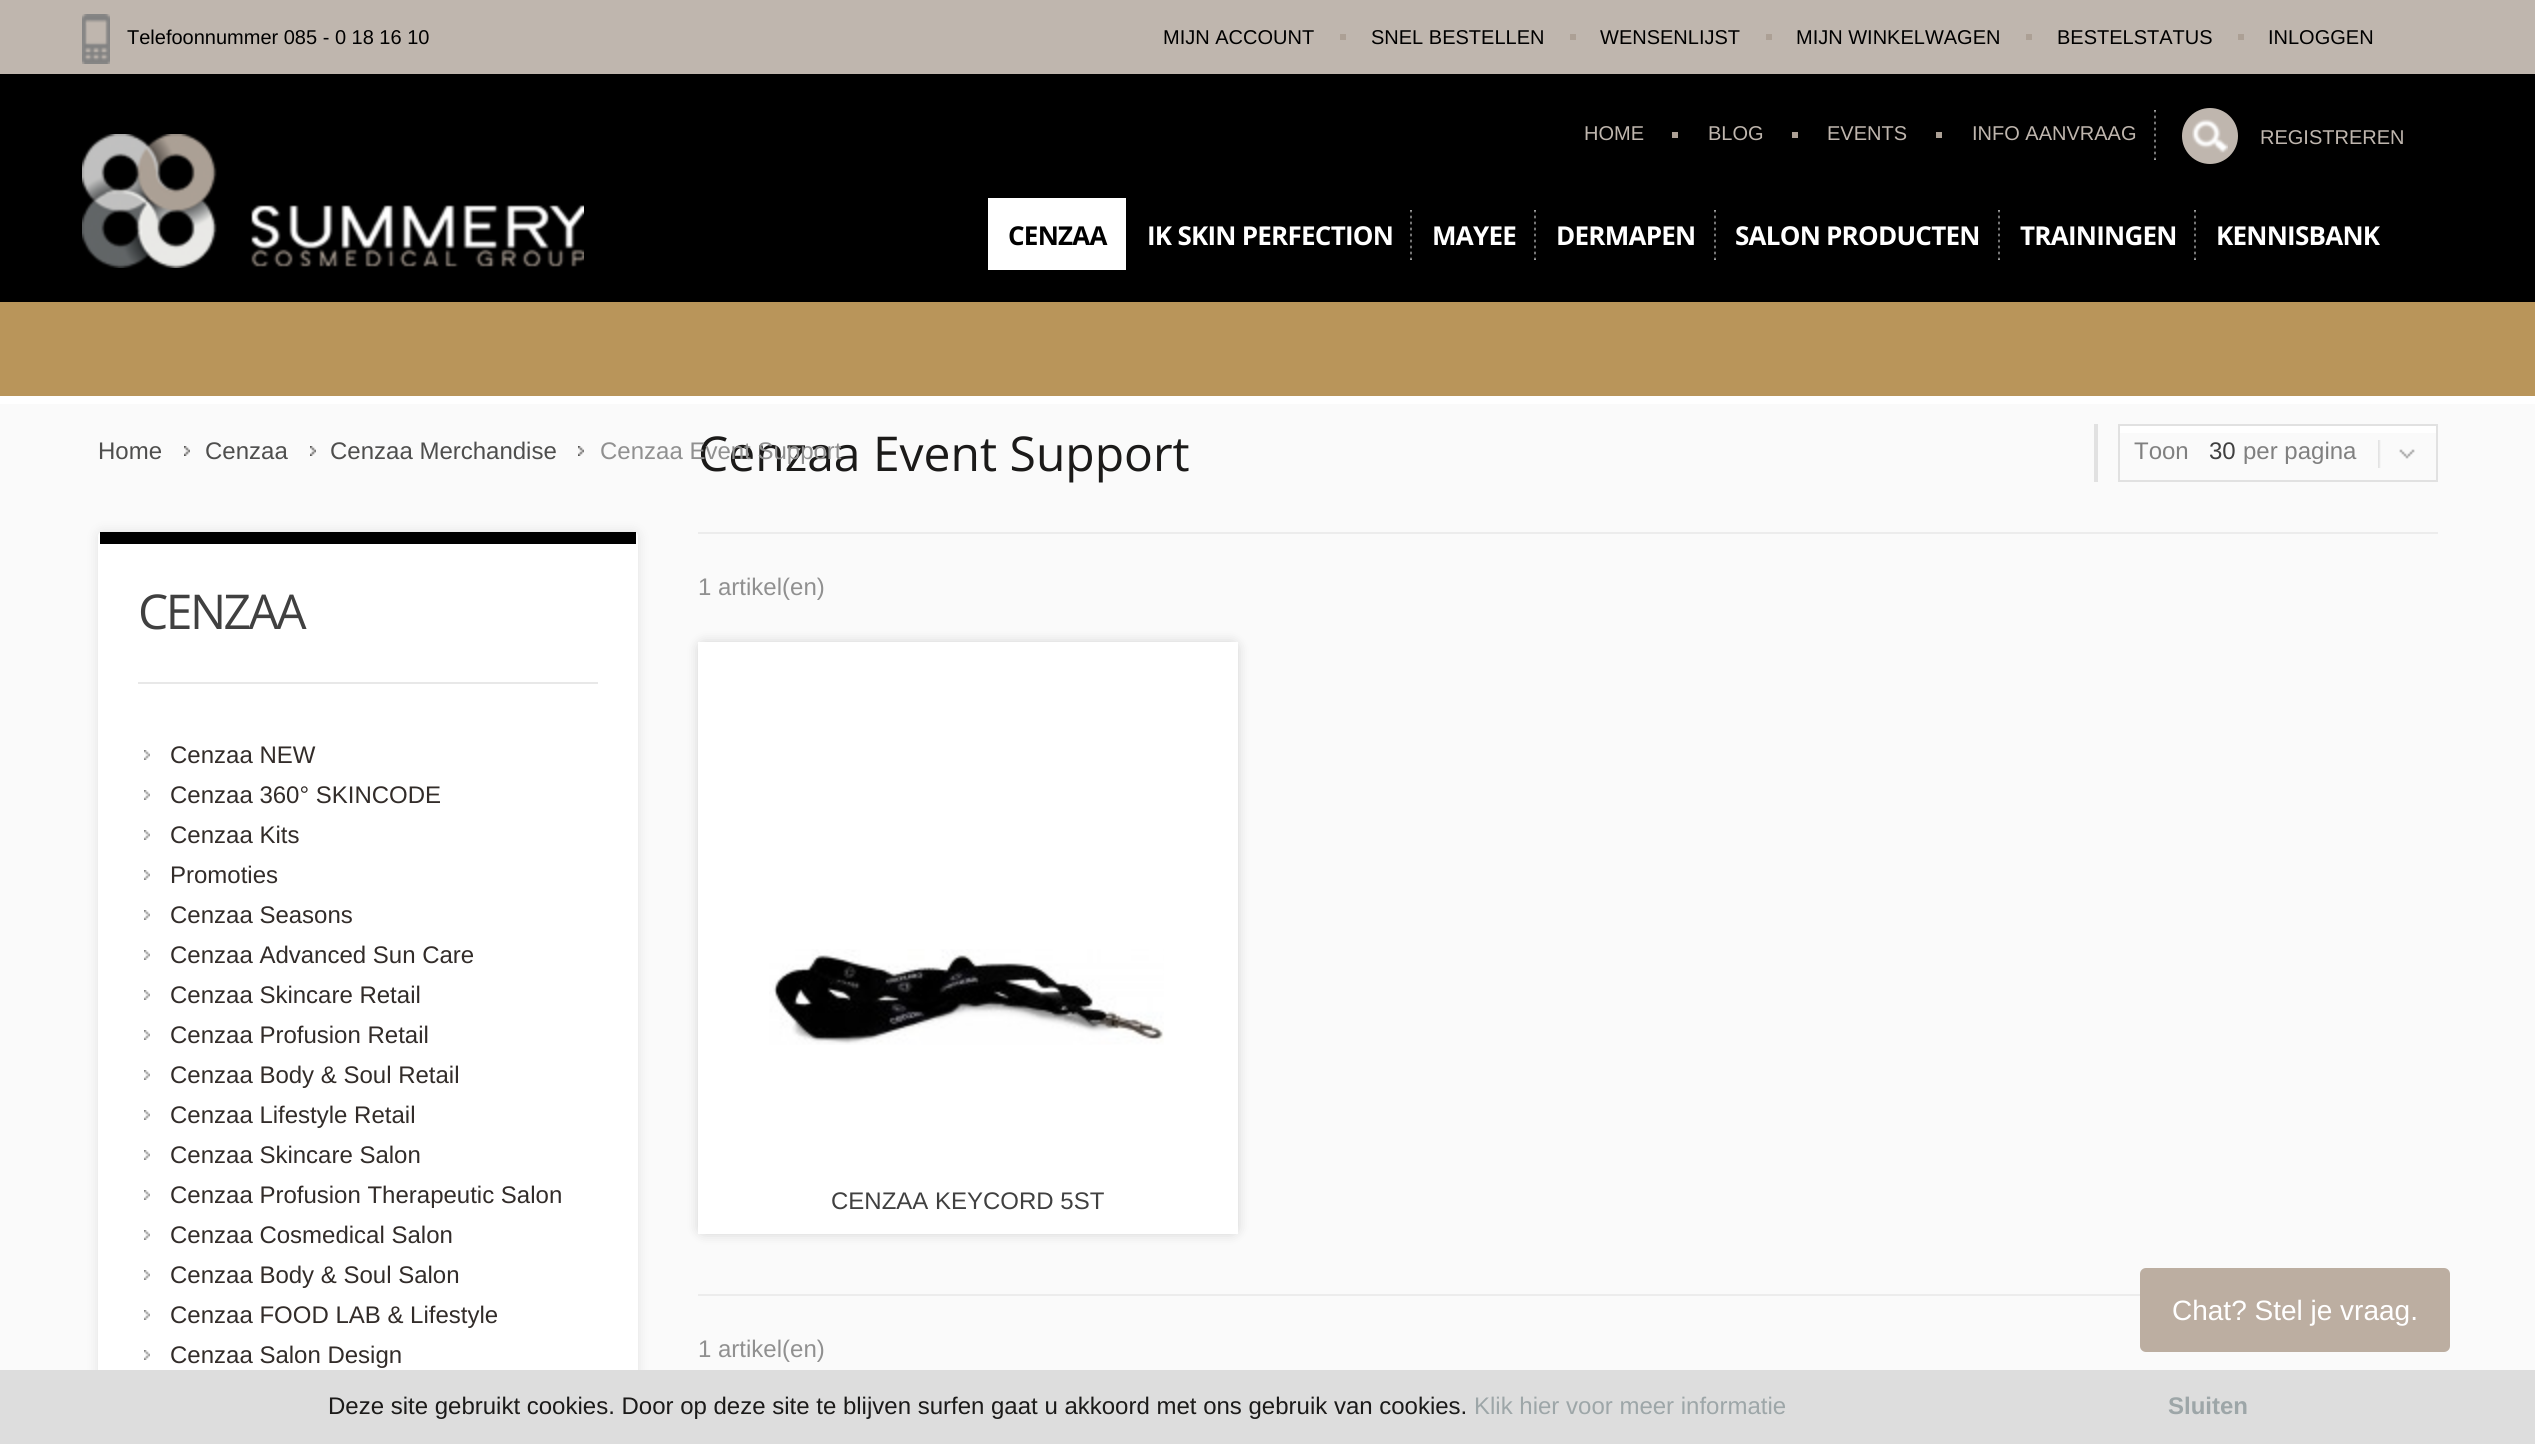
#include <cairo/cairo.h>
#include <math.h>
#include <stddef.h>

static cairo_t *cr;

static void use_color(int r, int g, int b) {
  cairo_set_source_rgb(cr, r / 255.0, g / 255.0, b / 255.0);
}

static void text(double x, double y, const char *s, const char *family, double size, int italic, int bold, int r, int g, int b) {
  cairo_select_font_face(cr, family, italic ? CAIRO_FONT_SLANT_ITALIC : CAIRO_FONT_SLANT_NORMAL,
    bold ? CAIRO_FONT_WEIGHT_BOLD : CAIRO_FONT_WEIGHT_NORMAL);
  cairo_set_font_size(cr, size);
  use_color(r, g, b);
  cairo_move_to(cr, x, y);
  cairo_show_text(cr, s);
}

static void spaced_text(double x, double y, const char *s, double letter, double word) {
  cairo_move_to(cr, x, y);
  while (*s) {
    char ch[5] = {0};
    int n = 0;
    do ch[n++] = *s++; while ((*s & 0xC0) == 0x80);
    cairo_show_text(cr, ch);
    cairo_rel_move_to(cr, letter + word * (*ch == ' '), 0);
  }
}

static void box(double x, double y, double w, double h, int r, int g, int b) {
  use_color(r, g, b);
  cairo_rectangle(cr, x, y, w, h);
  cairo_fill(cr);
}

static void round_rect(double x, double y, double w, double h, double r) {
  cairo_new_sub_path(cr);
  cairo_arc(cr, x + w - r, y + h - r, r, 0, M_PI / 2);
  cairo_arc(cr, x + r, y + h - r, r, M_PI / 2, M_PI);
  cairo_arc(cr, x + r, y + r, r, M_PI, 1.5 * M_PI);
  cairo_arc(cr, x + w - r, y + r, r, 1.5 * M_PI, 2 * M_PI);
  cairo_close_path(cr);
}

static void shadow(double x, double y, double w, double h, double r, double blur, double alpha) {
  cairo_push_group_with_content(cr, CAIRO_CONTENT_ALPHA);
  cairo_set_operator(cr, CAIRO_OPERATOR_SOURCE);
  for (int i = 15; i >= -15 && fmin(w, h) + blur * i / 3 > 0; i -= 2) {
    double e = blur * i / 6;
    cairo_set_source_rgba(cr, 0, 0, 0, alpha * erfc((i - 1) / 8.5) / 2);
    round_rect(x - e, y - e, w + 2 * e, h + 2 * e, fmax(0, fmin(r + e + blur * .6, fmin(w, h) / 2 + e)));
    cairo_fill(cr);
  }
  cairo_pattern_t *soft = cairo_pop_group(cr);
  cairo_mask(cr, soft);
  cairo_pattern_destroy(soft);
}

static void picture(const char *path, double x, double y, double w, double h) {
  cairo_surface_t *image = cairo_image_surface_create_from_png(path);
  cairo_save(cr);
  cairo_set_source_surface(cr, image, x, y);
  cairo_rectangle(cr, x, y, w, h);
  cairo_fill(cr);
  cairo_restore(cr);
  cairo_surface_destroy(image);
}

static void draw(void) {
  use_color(250, 250, 250);
  cairo_paint(cr);
  box(0, 74, 2535, 228, 0, 0, 0);
  box(0, 0, 2535, 74, 191, 182, 174);
  picture("img_01.png", 82, 14, 28, 50);
  box(1340, 34, 6, 6, 172, 160, 149);
  box(1570, 34, 6, 6, 172, 160, 149);
  box(1766, 34, 6, 6, 172, 160, 149);
  box(2026, 34, 6, 6, 172, 160, 149);
  box(2238, 34, 6, 6, 172, 160, 149);
  box(0, 396, 2535, 8, 255, 255, 255);
  picture("img_02.png", 82, 134, 502, 134);
  picture("img_03.png", 2154, 110, 2, 50);
  box(1672, 132, 6, 6, 172, 160, 149);
  box(1792, 132, 6, 6, 172, 160, 149);
  box(1936, 132, 6, 6, 172, 160, 149);
  use_color(191, 182, 174);
  cairo_arc(cr, 2210, 136, 28, 0, 2 * M_PI);
  cairo_fill(cr);
  picture("img_04.png", 2192, 119, 36, 34);
  box(988, 198, 138, 72, 255, 255, 255);
  picture("img_03.png", 1410, 210, 2, 50);
  picture("img_03.png", 1534, 210, 2, 50);
  picture("img_03.png", 1714, 210, 2, 50);
  picture("img_03.png", 1998, 210, 2, 50);
  picture("img_03.png", 2194, 210, 2, 50);
  box(0, 302, 2535, 94, 185, 149, 90);
  picture("img_05.png", 184, 446, 6, 10);
  picture("img_05.png", 310, 446, 6, 10);
  picture("img_05.png", 578, 446, 6, 10);
  box(2094, 424, 4, 58, 225, 225, 225);
  box(2118, 426, 320, 7, 255, 255, 255);
  cairo_rectangle(cr, 2119, 425, 318, 56);
  use_color(225, 225, 225);
  cairo_stroke(cr);
  picture("img_06.png", 2378, 440, 37, 28);
  box(698, 532, 1740, 2, 236, 236, 236);
  use_color(0, 0, 0);
  shadow(698, 642, 540, 592, 6, 6, 0.15);
  box(716, 660, 504, 556, 255, 255, 255);
  cairo_new_path(cr);
  cairo_move_to(cr, 707, 651);
  cairo_line_to(cr, 1229, 651);
  cairo_line_to(cr, 1229, 1225);
  cairo_line_to(cr, 707, 1225);
  cairo_close_path(cr);
  cairo_set_line_width(cr, 18);
  cairo_stroke(cr);
  picture("img_07.png", 769, 949, 395, 96);
  box(698, 1294, 1442, 2, 236, 236, 236);
  use_color(0, 0, 0);
  shadow(98, 532, 540, 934, 4, 6, 0.1);
  use_color(255, 255, 255);
  round_rect(98, 532, 540, 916, 4);
  cairo_fill(cr);
  box(100, 532, 536, 12, 0, 0, 0);
  box(138, 682, 460, 2, 232, 232, 232);
  picture("img_08.png", 144, 750, 6, 10);
  picture("img_08.png", 144, 790, 6, 10);
  picture("img_08.png", 144, 830, 6, 10);
  picture("img_08.png", 144, 870, 6, 10);
  picture("img_08.png", 144, 910, 6, 10);
  picture("img_08.png", 144, 950, 6, 10);
  picture("img_08.png", 144, 990, 6, 10);
  picture("img_08.png", 144, 1030, 6, 10);
  picture("img_08.png", 144, 1070, 6, 10);
  picture("img_08.png", 144, 1110, 6, 10);
  picture("img_08.png", 144, 1150, 6, 10);
  picture("img_08.png", 144, 1190, 6, 10);
  picture("img_08.png", 144, 1230, 6, 10);
  picture("img_08.png", 144, 1270, 6, 10);
  picture("img_08.png", 144, 1310, 6, 10);
  picture("img_08.png", 144, 1350, 6, 10);
  box(0, 1370, 2535, 74, 221, 221, 221);
  use_color(188, 174, 161);
  round_rect(2140, 1268, 310, 84, 6);
  cairo_fill(cr);
  text(127, 44, "Telefoonnummer 085 - 0 18 16 10", "Liberation Sans", 20, 0, 0, 0, 0, 0);
  text(1163, 44, "MIJN ACCOUNT", "Liberation Sans", 20, 0, 0, 0, 0, 0);
  text(1371, 44, "SNEL BESTELLEN", "Liberation Sans", 20, 0, 0, 0, 0, 0);
  text(1600, 44, "WENSENLIJST", "Liberation Sans", 20, 0, 0, 0, 0, 0);
  text(1796, 44, "MIJN WINKELWAGEN", "Liberation Sans", 20, 0, 0, 0, 0, 0);
  text(2057, 44, "BESTELSTATUS", "Liberation Sans", 20, 0, 0, 0, 0, 0);
  text(2268, 44, "INLOGGEN", "Liberation Sans", 20, 0, 0, 0, 0, 0);
  text(1584, 140, "HOME", "Liberation Sans", 20, 0, 0, 191, 182, 174);
  text(1708, 140, "BLOG", "Liberation Sans", 20, 0, 0, 191, 182, 174);
  text(1827, 140, "EVENTS", "Liberation Sans", 20, 0, 0, 191, 182, 174);
  text(1972, 140, "INFO AANVRAAG", "Liberation Sans", 20, 0, 0, 191, 182, 174);
  text(2260, 144, "REGISTREREN", "Liberation Sans", 20, 0, 0, 191, 182, 174);
  cairo_select_font_face(cr, "Open Sans", CAIRO_FONT_SLANT_NORMAL, CAIRO_FONT_WEIGHT_BOLD);
  cairo_set_font_size(cr, 26);
  use_color(0, 0, 0);
  spaced_text(1008, 245, "CENZAA", -0.75, 0);
  use_color(255, 255, 255);
  spaced_text(1147, 245, "IK SKIN PERFECTION", -0.75, 0);
  spaced_text(1432, 245, "MAYEE", -0.75, 0);
  spaced_text(1556, 245, "DERMAPEN", -0.75, 0);
  spaced_text(1735, 245, "SALON PRODUCTEN", -0.75, 0);
  spaced_text(2020, 245, "TRAININGEN", -0.75, 0);
  spaced_text(2216, 245, "KENNISBANK", -0.75, 0);
  text(98, 459, "Home", "Liberation Sans", 24, 0, 0, 78, 78, 77);
  text(205, 459, "Cenzaa", "Liberation Sans", 24, 0, 0, 78, 78, 77);
  text(330, 459, "Cenzaa Merchandise", "Liberation Sans", 24, 0, 0, 78, 78, 77);
  text(698, 471, "Cenzaa Event Support", "Open Sans", 48, 0, 0, 27, 26, 25);
  text(600, 459, "Cenzaa Event Support", "Liberation Sans", 24, 0, 0, 144, 144, 144);
  text(2134, 459, "Toon", "Liberation Sans", 24, 0, 0, 128, 128, 128);
  text(2209, 459, "30", "Liberation Sans", 24, 0, 0, 64, 64, 64);
  text(2243, 459, "per pagina", "Liberation Sans", 24, 0, 0, 128, 128, 128);
  text(698, 595, "1 artikel(en)", "Liberation Sans", 24, 0, 0, 144, 144, 144);
  text(831, 1209, "CENZAA KEYCORD 5ST", "Liberation Sans", 24, 0, 0, 64, 64, 64);
  text(698, 1357, "1 artikel(en)", "Liberation Sans", 24, 0, 0, 144, 144, 144);
  cairo_select_font_face(cr, "Open Sans", CAIRO_FONT_SLANT_NORMAL, CAIRO_FONT_WEIGHT_NORMAL);
  cairo_set_font_size(cr, 48);
  use_color(64, 64, 64);
  spaced_text(138, 629, "CENZAA", -2.5, 0);
  text(170, 763, "Cenzaa NEW", "Liberation Sans", 24, 0, 0, 50, 44, 41);
  text(170, 803, "Cenzaa 360° SKINCODE", "Liberation Sans", 24, 0, 0, 50, 44, 41);
  text(170, 843, "Cenzaa Kits", "Liberation Sans", 24, 0, 0, 50, 44, 41);
  text(170, 883, "Promoties", "Liberation Sans", 24, 0, 0, 50, 44, 41);
  text(170, 923, "Cenzaa Seasons", "Liberation Sans", 24, 0, 0, 50, 44, 41);
  text(170, 963, "Cenzaa Advanced Sun Care", "Liberation Sans", 24, 0, 0, 50, 44, 41);
  text(170, 1003, "Cenzaa Skincare Retail", "Liberation Sans", 24, 0, 0, 50, 44, 41);
  text(170, 1043, "Cenzaa Profusion Retail", "Liberation Sans", 24, 0, 0, 50, 44, 41);
  text(170, 1083, "Cenzaa Body & Soul Retail", "Liberation Sans", 24, 0, 0, 50, 44, 41);
  text(170, 1123, "Cenzaa Lifestyle Retail", "Liberation Sans", 24, 0, 0, 50, 44, 41);
  text(170, 1163, "Cenzaa Skincare Salon", "Liberation Sans", 24, 0, 0, 50, 44, 41);
  text(170, 1203, "Cenzaa Profusion Therapeutic Salon", "Liberation Sans", 24, 0, 0, 50, 44, 41);
  text(170, 1243, "Cenzaa Cosmedical Salon", "Liberation Sans", 24, 0, 0, 50, 44, 41);
  text(170, 1283, "Cenzaa Body & Soul Salon", "Liberation Sans", 24, 0, 0, 50, 44, 41);
  text(170, 1323, "Cenzaa FOOD LAB & Lifestyle", "Liberation Sans", 24, 0, 0, 50, 44, 41);
  text(170, 1363, "Cenzaa Salon Design", "Liberation Sans", 24, 0, 0, 50, 44, 41);
  text(328, 1414, "Deze site gebruikt cookies. Door op deze site te blijven surfen gaat u akkoord met ons gebruik van cookies.", "Liberation Sans", 24, 0, 0, 27, 26, 25);
  text(1474, 1414, "Klik hier voor meer informatie", "Liberation Sans", 24, 0, 0, 157, 166, 168);
  text(2168, 1414, "Sluiten", "Liberation Sans", 24, 0, 1, 157, 166, 168);
  text(2172, 1320, "Chat? Stel je vraag.", "Liberation Sans", 28, 0, 0, 255, 255, 255);
}

int main(void) {
  cairo_surface_t *surface = cairo_image_surface_create(CAIRO_FORMAT_RGB24, 2535, 1444);
  cr = cairo_create(surface);
  cairo_font_options_t *options = cairo_font_options_create();
  cairo_font_options_set_hint_metrics(options, CAIRO_HINT_METRICS_OFF);
  cairo_font_options_set_hint_style(options, CAIRO_HINT_STYLE_NONE);
  cairo_set_font_options(cr, options);
  cairo_set_miter_limit(cr, 4);
  draw();
  cairo_surface_write_to_png(surface, "out.png");
  cairo_font_options_destroy(options);
  cairo_destroy(cr);
  cairo_surface_destroy(surface);
  return 0;
}
